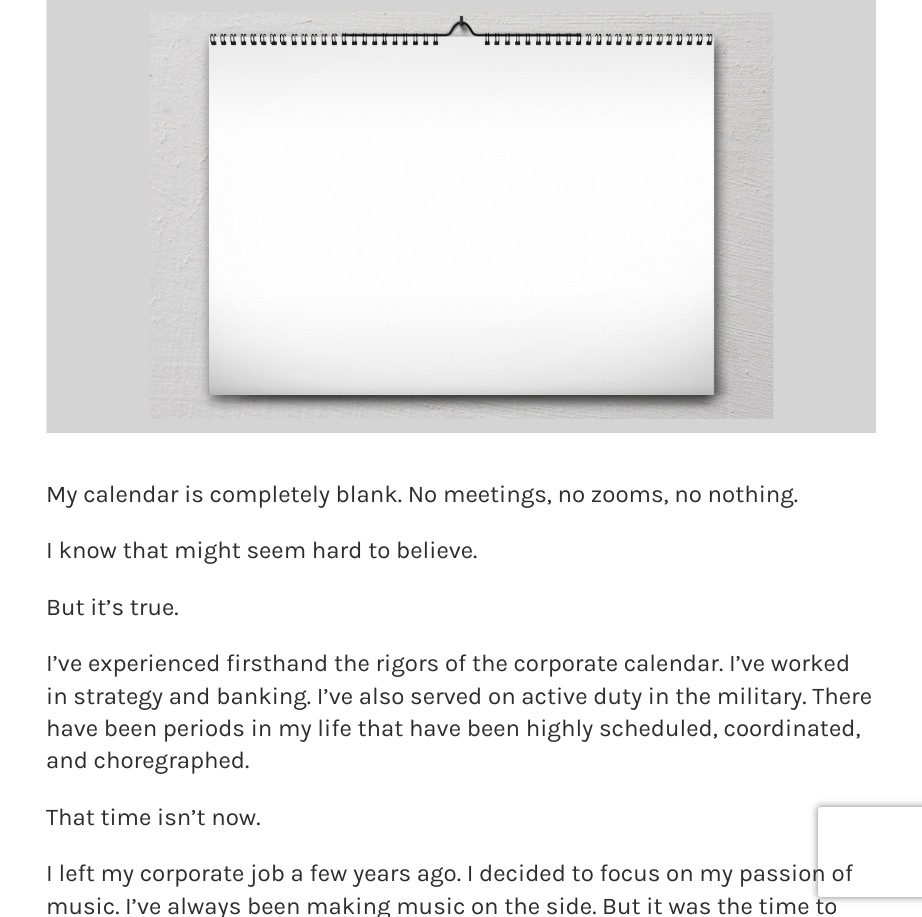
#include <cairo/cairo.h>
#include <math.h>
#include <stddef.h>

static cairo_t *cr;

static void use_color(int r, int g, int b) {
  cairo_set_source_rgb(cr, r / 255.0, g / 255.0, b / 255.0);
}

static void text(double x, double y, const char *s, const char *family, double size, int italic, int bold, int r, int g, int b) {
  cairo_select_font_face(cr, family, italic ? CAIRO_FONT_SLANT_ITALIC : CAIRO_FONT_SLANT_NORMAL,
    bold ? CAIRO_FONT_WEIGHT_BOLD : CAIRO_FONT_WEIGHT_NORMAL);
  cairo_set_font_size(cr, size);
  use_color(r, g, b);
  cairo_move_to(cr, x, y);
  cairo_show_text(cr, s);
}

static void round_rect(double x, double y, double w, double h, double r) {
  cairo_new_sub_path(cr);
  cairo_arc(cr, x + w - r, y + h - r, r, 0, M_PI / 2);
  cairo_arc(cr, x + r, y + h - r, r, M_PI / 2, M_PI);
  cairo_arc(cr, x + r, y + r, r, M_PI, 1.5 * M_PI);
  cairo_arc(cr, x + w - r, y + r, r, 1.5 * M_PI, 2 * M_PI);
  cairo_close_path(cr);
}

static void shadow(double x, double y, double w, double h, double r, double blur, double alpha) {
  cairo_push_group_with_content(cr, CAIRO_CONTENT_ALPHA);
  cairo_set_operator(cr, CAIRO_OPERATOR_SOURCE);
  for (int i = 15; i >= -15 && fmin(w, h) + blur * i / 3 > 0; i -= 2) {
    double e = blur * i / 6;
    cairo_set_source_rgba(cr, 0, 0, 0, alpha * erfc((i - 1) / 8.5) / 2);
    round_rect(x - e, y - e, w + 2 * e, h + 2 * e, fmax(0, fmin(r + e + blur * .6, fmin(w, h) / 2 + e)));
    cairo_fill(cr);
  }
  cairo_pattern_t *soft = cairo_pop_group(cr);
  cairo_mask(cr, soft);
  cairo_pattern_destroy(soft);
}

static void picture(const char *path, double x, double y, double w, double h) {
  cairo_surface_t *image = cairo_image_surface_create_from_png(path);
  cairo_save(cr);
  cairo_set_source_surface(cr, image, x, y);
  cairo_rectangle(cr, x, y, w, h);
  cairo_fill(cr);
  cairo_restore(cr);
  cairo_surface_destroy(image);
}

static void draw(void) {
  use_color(255, 255, 255);
  cairo_paint(cr);
  picture("img_01.png", 46, 0, 830, 433);
  cairo_save(cr);
  cairo_set_fill_rule(cr, CAIRO_FILL_RULE_EVEN_ODD);
  cairo_new_path(cr);
  cairo_move_to(cr, 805, 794);
  cairo_line_to(cr, 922, 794);
  cairo_line_to(cr, 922, 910);
  cairo_line_to(cr, 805, 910);
  cairo_close_path(cr);
  cairo_move_to(cr, 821, 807);
  cairo_line_to(cr, 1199, 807);
  cairo_curve_to(cr, 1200.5, 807, 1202, 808.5, 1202, 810);
  cairo_line_to(cr, 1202, 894);
  cairo_curve_to(cr, 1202, 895.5, 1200.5, 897, 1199, 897);
  cairo_line_to(cr, 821, 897);
  cairo_curve_to(cr, 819.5, 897, 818, 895.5, 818, 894);
  cairo_line_to(cr, 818, 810);
  cairo_curve_to(cr, 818, 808.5, 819.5, 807, 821, 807);
  cairo_close_path(cr);
  cairo_clip(cr);
  use_color(128, 128, 128);
  shadow(818, 807, 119, 90, 3, 4, 1);
  cairo_restore(cr);
  text(46, 502, "My calendar is completely blank. No meetings, no zooms, no nothing.", "Karla", 24, 0, 0, 45, 45, 45);
  text(46, 558, "I know that might seem hard to believe.", "Karla", 24, 0, 0, 45, 45, 45);
  text(46, 615, "But it’s true.", "Karla", 24, 0, 0, 45, 45, 45);
  text(46, 671, "I’ve experienced firsthand the rigors of the corporate calendar. I’ve worked", "Karla", 24, 0, 0, 45, 45, 45);
  text(46, 704, "in strategy and banking. I’ve also served on active duty in the military. There", "Karla", 24, 0, 0, 45, 45, 45);
  text(46, 736, "have been periods in my life that have been highly scheduled, coordinated,", "Karla", 24, 0, 0, 45, 45, 45);
  text(46, 768, "and choregraphed.", "Karla", 24, 0, 0, 45, 45, 45);
  text(46, 825, "That time isn’t now.", "Karla", 24, 0, 0, 45, 45, 45);
  text(46, 881, "I left my corporate job a few years ago. I decided to focus on my passion of", "Karla", 24, 0, 0, 45, 45, 45);
  text(46, 914, "music. I’ve always been making music on the side. But it was the time to", "Karla", 24, 0, 0, 45, 45, 45);
}

int main(void) {
  cairo_surface_t *surface = cairo_image_surface_create(CAIRO_FORMAT_RGB24, 922, 917);
  cr = cairo_create(surface);
  cairo_font_options_t *options = cairo_font_options_create();
  cairo_font_options_set_hint_metrics(options, CAIRO_HINT_METRICS_OFF);
  cairo_font_options_set_hint_style(options, CAIRO_HINT_STYLE_NONE);
  cairo_set_font_options(cr, options);
  cairo_set_miter_limit(cr, 4);
  draw();
  cairo_surface_write_to_png(surface, "out.png");
  cairo_font_options_destroy(options);
  cairo_destroy(cr);
  cairo_surface_destroy(surface);
  return 0;
}
